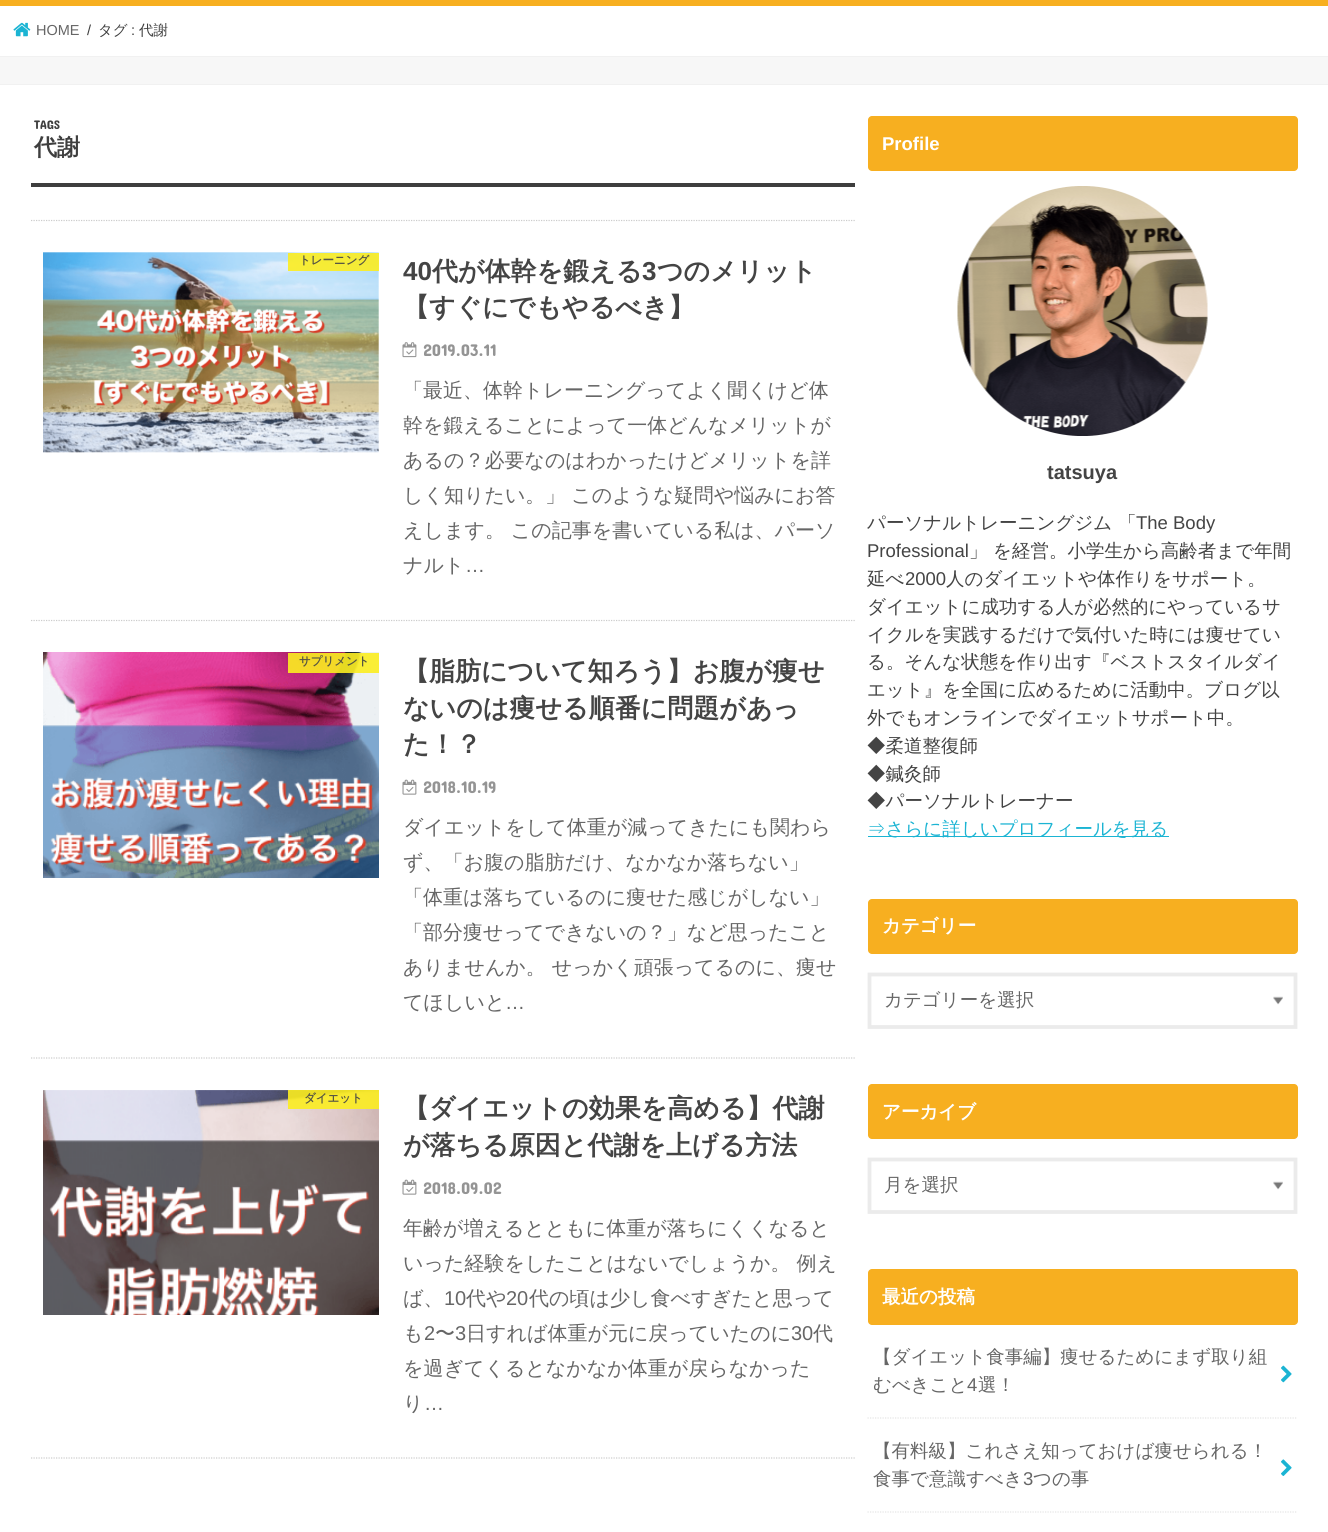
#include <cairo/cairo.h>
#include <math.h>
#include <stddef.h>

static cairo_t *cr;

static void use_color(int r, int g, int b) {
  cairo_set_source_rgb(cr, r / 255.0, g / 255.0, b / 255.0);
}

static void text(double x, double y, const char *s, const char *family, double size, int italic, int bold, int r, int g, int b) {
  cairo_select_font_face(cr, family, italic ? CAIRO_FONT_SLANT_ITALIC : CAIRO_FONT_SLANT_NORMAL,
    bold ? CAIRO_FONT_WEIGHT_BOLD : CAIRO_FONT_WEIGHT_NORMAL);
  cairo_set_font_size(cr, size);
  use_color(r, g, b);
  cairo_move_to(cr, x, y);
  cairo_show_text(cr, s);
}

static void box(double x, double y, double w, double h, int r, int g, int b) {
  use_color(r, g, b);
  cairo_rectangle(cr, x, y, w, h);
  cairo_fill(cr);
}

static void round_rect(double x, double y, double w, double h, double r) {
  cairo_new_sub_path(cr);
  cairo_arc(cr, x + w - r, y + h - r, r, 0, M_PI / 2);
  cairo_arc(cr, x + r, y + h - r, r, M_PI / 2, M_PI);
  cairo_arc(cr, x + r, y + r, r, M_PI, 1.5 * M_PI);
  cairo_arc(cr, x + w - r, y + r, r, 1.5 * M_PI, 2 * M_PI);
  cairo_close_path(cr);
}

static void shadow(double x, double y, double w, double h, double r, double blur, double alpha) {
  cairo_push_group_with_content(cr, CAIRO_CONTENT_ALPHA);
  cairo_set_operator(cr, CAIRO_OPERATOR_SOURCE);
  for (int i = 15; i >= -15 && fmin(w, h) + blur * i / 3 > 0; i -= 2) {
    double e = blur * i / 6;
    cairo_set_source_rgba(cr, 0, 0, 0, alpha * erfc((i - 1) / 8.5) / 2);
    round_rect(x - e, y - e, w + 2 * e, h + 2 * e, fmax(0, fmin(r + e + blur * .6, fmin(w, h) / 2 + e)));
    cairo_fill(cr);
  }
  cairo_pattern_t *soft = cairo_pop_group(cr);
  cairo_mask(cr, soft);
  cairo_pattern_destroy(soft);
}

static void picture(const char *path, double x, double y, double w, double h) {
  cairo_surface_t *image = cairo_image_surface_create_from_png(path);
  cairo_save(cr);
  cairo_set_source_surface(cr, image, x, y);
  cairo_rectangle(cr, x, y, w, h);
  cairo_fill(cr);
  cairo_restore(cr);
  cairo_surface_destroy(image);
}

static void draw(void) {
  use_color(247, 247, 247);
  cairo_paint(cr);
  use_color(221, 221, 221);
  shadow(0, 6, 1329, 50, 0, 0.5, 1);
  box(0, 0, 1328, 6, 247, 175, 32);
  box(0, 6, 1328, 50, 255, 255, 255);
  picture("img_01.png", 13, 22, 18, 15);
  use_color(221, 221, 221);
  shadow(0, 85, 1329, 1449, 0, 0.5, 1);
  box(0, 85, 1328, 1447, 255, 255, 255);
  box(31, 183, 824, 4, 62, 62, 62);
  cairo_new_path(cr);
  cairo_move_to(cr, 31, 220.5);
  cairo_line_to(cr, 855, 220.5);
  use_color(204, 204, 204);
  cairo_set_line_width(cr, 1.2);
  cairo_set_dash(cr, (double[]){1.25, 1.25}, 2, 0);
  cairo_stroke(cr);
  cairo_new_path(cr);
  cairo_move_to(cr, 31, 620.5);
  cairo_line_to(cr, 855, 620.5);
  cairo_stroke(cr);
  picture("img_02.png", 43, 252, 336, 201);
  cairo_set_source_rgba(cr, 0.988, 0.933, 0.129, 0.9);
  cairo_rectangle(cr, 288, 253, 91, 18);
  cairo_fill(cr);
  picture("img_03.png", 402, 342, 15, 16);
  cairo_new_path(cr);
  cairo_move_to(cr, 31, 1058);
  cairo_line_to(cr, 855, 1058);
  use_color(204, 204, 204);
  cairo_stroke(cr);
  picture("img_04.png", 43, 652, 336, 226);
  cairo_set_source_rgba(cr, 0.988, 0.933, 0.129, 0.9);
  cairo_rectangle(cr, 288, 653, 91, 20);
  cairo_fill(cr);
  picture("img_05.png", 402, 779, 15, 16);
  cairo_new_path(cr);
  cairo_move_to(cr, 31, 1458);
  cairo_line_to(cr, 855, 1458);
  use_color(204, 204, 204);
  cairo_stroke(cr);
  picture("img_06.png", 43, 1090, 336, 225);
  cairo_set_source_rgba(cr, 0.988, 0.933, 0.129, 0.9);
  cairo_rectangle(cr, 288, 1090, 91, 19);
  cairo_fill(cr);
  picture("img_05.png", 402, 1179, 15, 16);
  use_color(247, 175, 32);
  round_rect(868, 116, 430, 55, 4);
  cairo_fill(cr);
  picture("img_07.png", 957, 186, 251, 250);
  box(868, 836, 301, 1, 27, 180, 211);
  use_color(247, 175, 32);
  round_rect(868, 899, 430, 55, 4);
  cairo_fill(cr);
  picture("img_08.png", 1273, 996, 10, 9);
  cairo_new_path(cr);
  cairo_move_to(cr, 869.5, 974.5);
  cairo_line_to(cr, 1295.5, 974.5);
  cairo_line_to(cr, 1295.5, 1027);
  cairo_line_to(cr, 869.5, 1027);
  cairo_close_path(cr);
  use_color(235, 235, 235);
  cairo_set_line_width(cr, 3.8);
  cairo_set_dash(cr, NULL, 0, 0);
  cairo_stroke(cr);
  use_color(247, 175, 32);
  round_rect(868, 1084, 430, 55, 4);
  cairo_fill(cr);
  picture("img_08.png", 1273, 1181, 10, 9);
  cairo_new_path(cr);
  cairo_move_to(cr, 869.5, 1159.5);
  cairo_line_to(cr, 1295.5, 1159.5);
  cairo_line_to(cr, 1295.5, 1212);
  cairo_line_to(cr, 869.5, 1212);
  cairo_close_path(cr);
  use_color(235, 235, 235);
  cairo_stroke(cr);
  use_color(247, 175, 32);
  round_rect(868, 1269, 430, 56, 4);
  cairo_fill(cr);
  cairo_new_path(cr);
  cairo_move_to(cr, 867.5, 1418);
  cairo_line_to(cr, 1297.5, 1418);
  use_color(229, 229, 229);
  cairo_set_line_width(cr, 1.2);
  cairo_set_dash(cr, (double[]){1.25, 1.25}, 2, 0);
  cairo_stroke(cr);
  picture("img_09.png", 1281, 1365, 11, 18);
  cairo_new_path(cr);
  cairo_move_to(cr, 867.5, 1512);
  cairo_line_to(cr, 1297.5, 1512);
  cairo_stroke(cr);
  picture("img_10.png", 1281, 1459, 11, 17);
  text(36, 35, "HOME", "Liberation Sans", 14.5, 0, 0, 102, 102, 102);
  text(87, 35, "/", "Liberation Sans", 14.5, 0, 0, 62, 62, 62);
  text(98, 35, "タグ", "WenQuanYi Zen Hei Medium", 14.5, 0, 0, 62, 62, 62);
  text(131, 35, ":", "Liberation Sans", 14.5, 0, 0, 62, 62, 62);
  text(139, 35, "代謝", "WenQuanYi Zen Hei Medium", 14.5, 0, 0, 62, 62, 62);
  text(34, 129, "TAGS", "Concert One", 12.5, 0, 0, 62, 62, 62);
  text(34, 155, "代謝", "WenQuanYi Zen Hei", 23, 0, 1, 62, 62, 62);
  text(299, 264, "トレーニング", "WenQuanYi Zen Hei", 11.5, 0, 1, 86, 85, 67);
  text(403, 280, "40", "Liberation Sans", 26, 0, 1, 68, 68, 68);
  text(432, 280, "代が体幹を鍛える", "WenQuanYi Zen Hei", 26, 0, 1, 68, 68, 68);
  text(642, 280, "3", "Liberation Sans", 26, 0, 1, 68, 68, 68);
  text(657, 280, "つのメリット", "WenQuanYi Zen Hei", 26, 0, 1, 68, 68, 68);
  text(403, 316, "【すぐにでもやるべき】", "WenQuanYi Zen Hei", 26, 0, 1, 68, 68, 68);
  text(423, 356, "2019.03.11", "Concert One", 17, 0, 0, 148, 148, 148);
  text(403, 397, "「最近、体幹トレーニングってよく聞くけど体", "WenQuanYi Zen Hei Medium", 20, 0, 0, 102, 102, 102);
  text(403, 432, "幹を鍛えることによって一体どんなメリットが", "WenQuanYi Zen Hei Medium", 20, 0, 0, 102, 102, 102);
  text(403, 467, "あるの？必要なのはわかったけどメリットを詳", "WenQuanYi Zen Hei Medium", 20, 0, 0, 102, 102, 102);
  text(403, 502, "しく知りたい。」 このような疑問や悩みにお答", "WenQuanYi Zen Hei Medium", 20, 0, 0, 102, 102, 102);
  text(403, 537, "えします。 この記事を書いている私は、パーソ", "WenQuanYi Zen Hei Medium", 20, 0, 0, 102, 102, 102);
  text(403, 572, "ナルト", "WenQuanYi Zen Hei Medium", 20, 0, 0, 102, 102, 102);
  text(465, 572, "…", "Liberation Sans", 20, 0, 0, 102, 102, 102);
  text(299, 665, "サプリメント", "WenQuanYi Zen Hei", 11.5, 0, 1, 86, 85, 67);
  text(403, 680, "【脂肪について知ろう】お腹が痩せ", "WenQuanYi Zen Hei", 26, 0, 1, 68, 68, 68);
  text(403, 717, "ないのは痩せる順番に問題があっ", "WenQuanYi Zen Hei", 26, 0, 1, 68, 68, 68);
  text(403, 753, "た！？", "WenQuanYi Zen Hei", 26, 0, 1, 68, 68, 68);
  text(423, 793, "2018.10.19", "Concert One", 17, 0, 0, 148, 148, 148);
  text(403, 834, "ダイエットをして体重が減ってきたにも関わら", "WenQuanYi Zen Hei Medium", 20, 0, 0, 102, 102, 102);
  text(403, 869, "ず、「お腹の脂肪だけ、なかなか落ちない」", "WenQuanYi Zen Hei Medium", 20, 0, 0, 102, 102, 102);
  text(403, 904, "「体重は落ちているのに痩せた感じがしない」", "WenQuanYi Zen Hei Medium", 20, 0, 0, 102, 102, 102);
  text(403, 939, "「部分痩せってできないの？」など思ったこと", "WenQuanYi Zen Hei Medium", 20, 0, 0, 102, 102, 102);
  text(403, 974, "ありませんか。 せっかく頑張ってるのに、痩せ", "WenQuanYi Zen Hei Medium", 20, 0, 0, 102, 102, 102);
  text(403, 1009, "てほしいと", "WenQuanYi Zen Hei Medium", 20, 0, 0, 102, 102, 102);
  text(505, 1009, "…", "Liberation Sans", 20, 0, 0, 102, 102, 102);
  text(304, 1102, "ダイエット", "WenQuanYi Zen Hei", 11.5, 0, 1, 86, 85, 67);
  text(403, 1117, "【ダイエットの効果を高める】代謝", "WenQuanYi Zen Hei", 26, 0, 1, 68, 68, 68);
  text(403, 1154, "が落ちる原因と代謝を上げる方法", "WenQuanYi Zen Hei", 26, 0, 1, 68, 68, 68);
  text(423, 1194, "2018.09.02", "Concert One", 17, 0, 0, 148, 148, 148);
  text(403, 1235, "年齢が増えるとともに体重が落ちにくくなると", "WenQuanYi Zen Hei Medium", 20, 0, 0, 102, 102, 102);
  text(403, 1270, "いった経験をしたことはないでしょうか。 例え", "WenQuanYi Zen Hei Medium", 20, 0, 0, 102, 102, 102);
  text(403, 1305, "ば、", "WenQuanYi Zen Hei Medium", 20, 0, 0, 102, 102, 102);
  text(444, 1305, "10", "Liberation Sans", 20, 0, 0, 102, 102, 102);
  text(466, 1305, "代や", "WenQuanYi Zen Hei Medium", 20, 0, 0, 102, 102, 102);
  text(506, 1305, "20", "Liberation Sans", 20, 0, 0, 102, 102, 102);
  text(529, 1305, "代の頃は少し食べすぎたと思って", "WenQuanYi Zen Hei Medium", 20, 0, 0, 102, 102, 102);
  text(403, 1340, "も", "WenQuanYi Zen Hei Medium", 20, 0, 0, 102, 102, 102);
  text(424, 1340, "2", "Liberation Sans", 20, 0, 0, 102, 102, 102);
  text(435, 1340, "〜", "WenQuanYi Zen Hei Medium", 20, 0, 0, 102, 102, 102);
  text(455, 1340, "3", "Liberation Sans", 20, 0, 0, 102, 102, 102);
  text(466, 1340, "日すれば体重が元に戻っていたのに", "WenQuanYi Zen Hei Medium", 20, 0, 0, 102, 102, 102);
  text(791, 1340, "30", "Liberation Sans", 20, 0, 0, 102, 102, 102);
  text(813, 1340, "代", "WenQuanYi Zen Hei Medium", 20, 0, 0, 102, 102, 102);
  text(403, 1375, "を過ぎてくるとなかなか体重が戻らなかった", "WenQuanYi Zen Hei Medium", 20, 0, 0, 102, 102, 102);
  text(403, 1410, "り", "WenQuanYi Zen Hei Medium", 20, 0, 0, 102, 102, 102);
  text(424, 1410, "…", "Liberation Sans", 20, 0, 0, 102, 102, 102);
  text(882, 150, "Profile", "Liberation Sans", 18.5, 0, 1, 255, 255, 255);
  text(1047, 479, "tatsuya", "Liberation Sans", 20, 0, 1, 68, 68, 68);
  text(867, 529, "パーソナルトレーニングジム", "WenQuanYi Zen Hei Medium", 18.5, 0, 0, 68, 68, 68);
  text(1118, 529, "「", "WenQuanYi Zen Hei Medium", 18.5, 0, 0, 68, 68, 68);
  text(1136, 529, "The Body", "Liberation Sans", 18.5, 0, 0, 68, 68, 68);
  text(867, 557, "Professional", "Liberation Sans", 18.5, 0, 0, 68, 68, 68);
  text(969, 557, "」 を経営。小学生から高齢者まで年間", "WenQuanYi Zen Hei Medium", 18.5, 0, 0, 68, 68, 68);
  text(867, 585, "延べ", "WenQuanYi Zen Hei Medium", 18.5, 0, 0, 68, 68, 68);
  text(905, 585, "2000", "Liberation Sans", 18.5, 0, 0, 68, 68, 68);
  text(946, 585, "人のダイエットや体作りをサポート。", "WenQuanYi Zen Hei Medium", 18.5, 0, 0, 68, 68, 68);
  text(867, 613, "ダイエットに成功する人が必然的にやっているサ", "WenQuanYi Zen Hei Medium", 18.5, 0, 0, 68, 68, 68);
  text(867, 641, "イクルを実践するだけで気付いた時には痩せてい", "WenQuanYi Zen Hei Medium", 18.5, 0, 0, 68, 68, 68);
  text(867, 668, "る。そんな状態を作り出す『ベストスタイルダイ", "WenQuanYi Zen Hei Medium", 18.5, 0, 0, 68, 68, 68);
  text(867, 696, "エット』を全国に広めるために活動中。ブログ以", "WenQuanYi Zen Hei Medium", 18.5, 0, 0, 68, 68, 68);
  text(867, 724, "外でもオンラインでダイエットサポート中。", "WenQuanYi Zen Hei Medium", 18.5, 0, 0, 68, 68, 68);
  text(867, 752, "◆柔道整復師", "WenQuanYi Zen Hei Medium", 18.5, 0, 0, 68, 68, 68);
  text(867, 780, "◆鍼灸師", "WenQuanYi Zen Hei Medium", 18.5, 0, 0, 68, 68, 68);
  text(867, 807, "◆パーソナルトレーナー", "WenQuanYi Zen Hei Medium", 18.5, 0, 0, 68, 68, 68);
  text(867, 835, "⇒さらに詳しいプロフィールを見る", "WenQuanYi Zen Hei Medium", 18.5, 0, 0, 27, 180, 211);
  text(882, 932, "カテゴリー", "WenQuanYi Zen Hei", 18.5, 0, 1, 255, 255, 255);
  text(884, 1006, "カテゴリーを選択", "WenQuanYi Zen Hei Medium", 18.5, 0, 0, 102, 102, 102);
  text(882, 1118, "アーカイブ", "WenQuanYi Zen Hei", 18.5, 0, 1, 255, 255, 255);
  text(884, 1191, "月を選択", "WenQuanYi Zen Hei Medium", 18.5, 0, 0, 102, 102, 102);
  text(882, 1303, "最近の投稿", "WenQuanYi Zen Hei", 18.5, 0, 1, 255, 255, 255);
  text(873, 1363, "【ダイエット食事編】痩せるためにまず取り組", "WenQuanYi Zen Hei Medium", 18.5, 0, 0, 102, 102, 102);
  text(873, 1391, "むべきこと", "WenQuanYi Zen Hei Medium", 18.5, 0, 0, 102, 102, 102);
  text(967, 1391, "4", "Liberation Sans", 18.5, 0, 0, 102, 102, 102);
  text(978, 1391, "選！", "WenQuanYi Zen Hei Medium", 18.5, 0, 0, 102, 102, 102);
  text(873, 1457, "【有料級】これさえ知っておけば痩せられる！", "WenQuanYi Zen Hei Medium", 18.5, 0, 0, 102, 102, 102);
  text(873, 1485, "食事で意識すべき", "WenQuanYi Zen Hei Medium", 18.5, 0, 0, 102, 102, 102);
  text(1023, 1485, "3", "Liberation Sans", 18.5, 0, 0, 102, 102, 102);
  text(1033, 1485, "つの事", "WenQuanYi Zen Hei Medium", 18.5, 0, 0, 102, 102, 102);
}

int main(void) {
  cairo_surface_t *surface = cairo_image_surface_create(CAIRO_FORMAT_RGB24, 1328, 1532);
  cr = cairo_create(surface);
  cairo_font_options_t *options = cairo_font_options_create();
  cairo_font_options_set_hint_metrics(options, CAIRO_HINT_METRICS_OFF);
  cairo_font_options_set_hint_style(options, CAIRO_HINT_STYLE_NONE);
  cairo_set_font_options(cr, options);
  cairo_set_miter_limit(cr, 4);
  draw();
  cairo_surface_write_to_png(surface, "out.png");
  cairo_font_options_destroy(options);
  cairo_destroy(cr);
  cairo_surface_destroy(surface);
  return 0;
}
